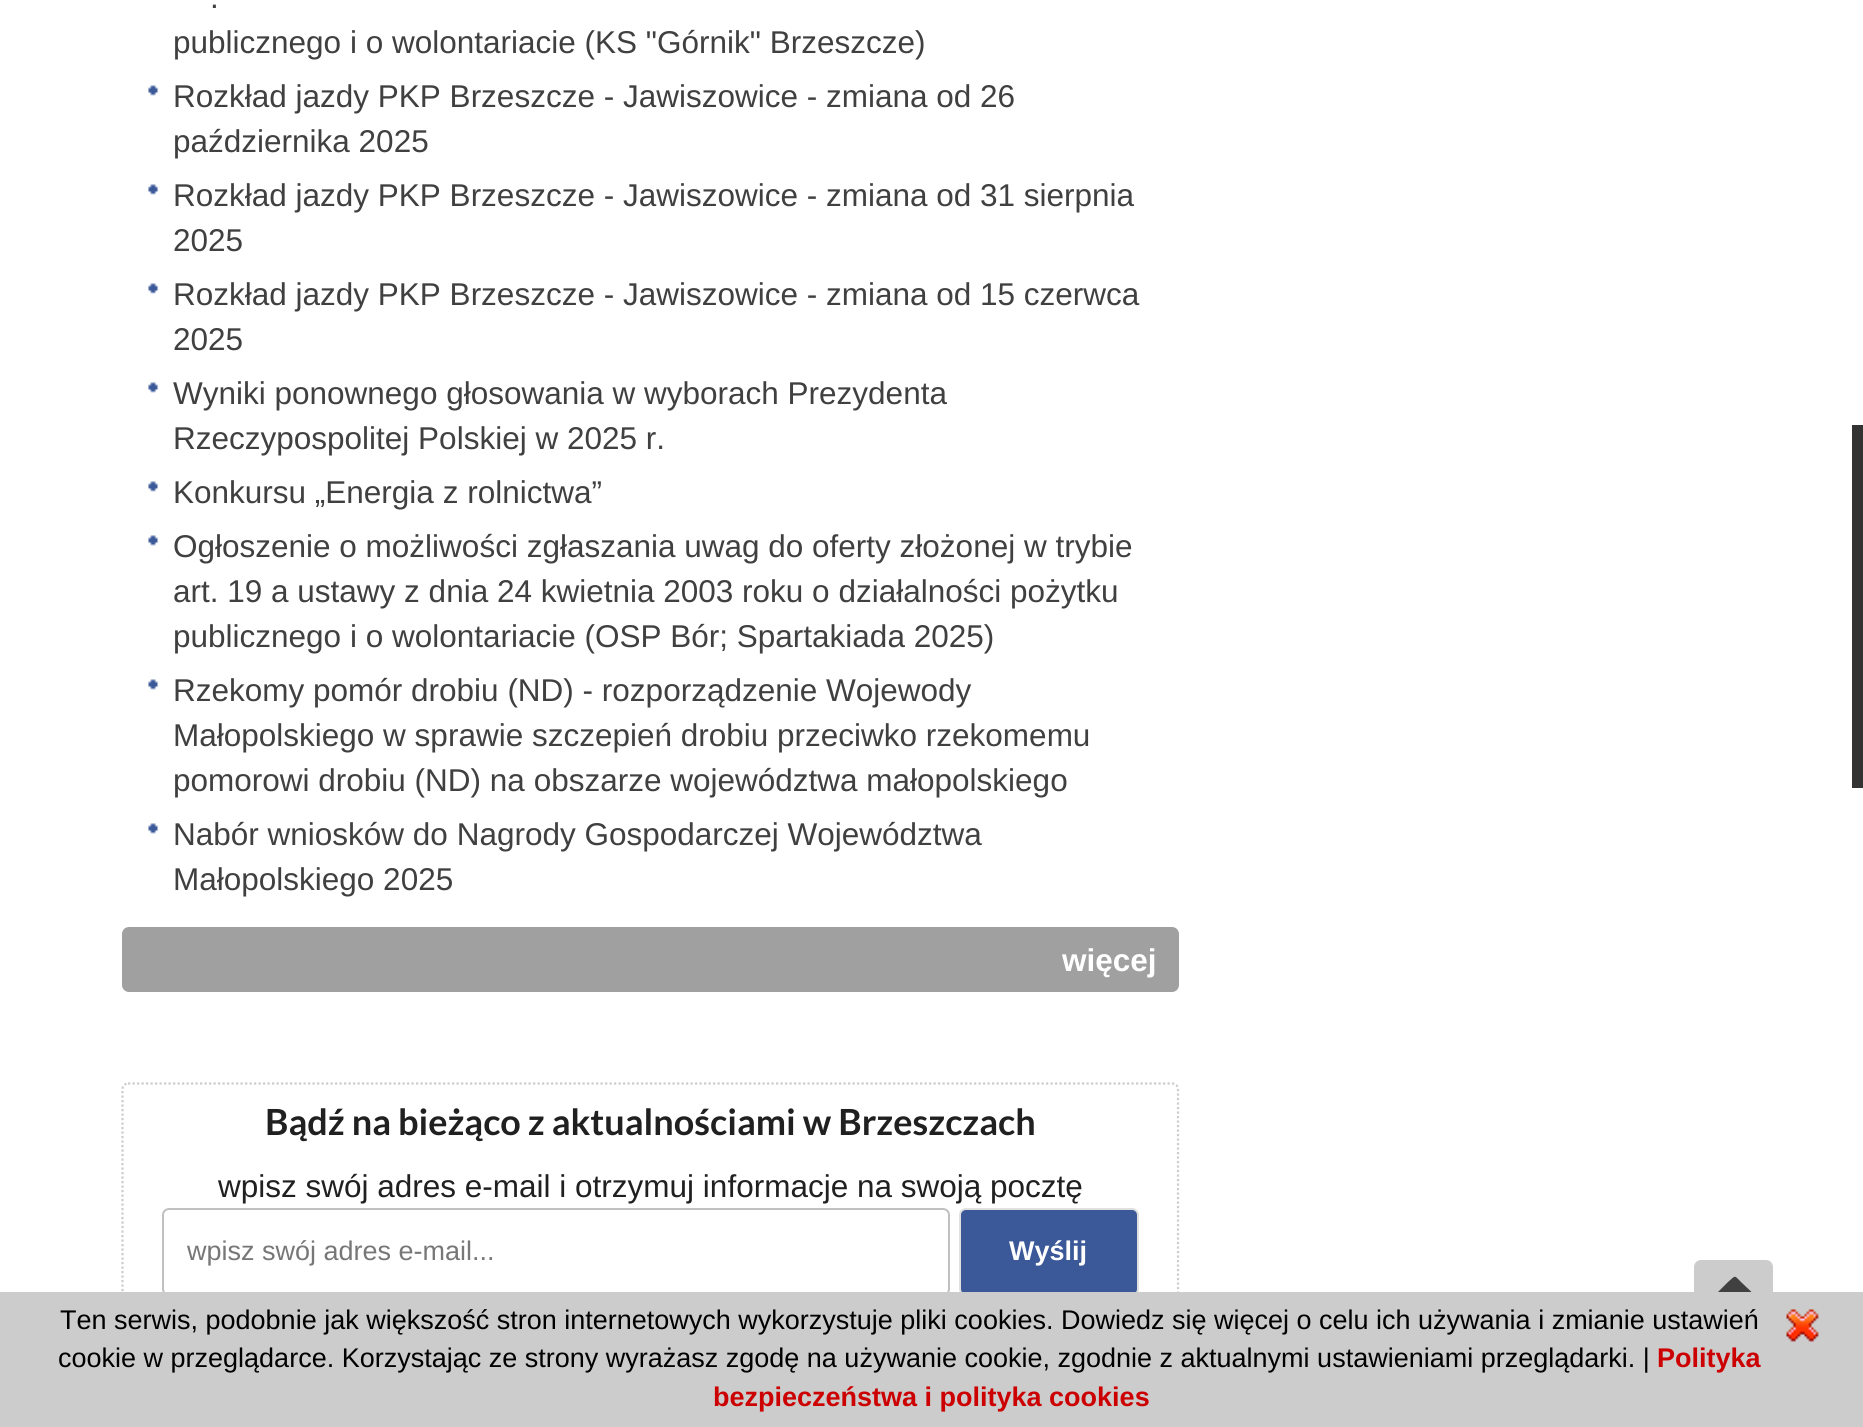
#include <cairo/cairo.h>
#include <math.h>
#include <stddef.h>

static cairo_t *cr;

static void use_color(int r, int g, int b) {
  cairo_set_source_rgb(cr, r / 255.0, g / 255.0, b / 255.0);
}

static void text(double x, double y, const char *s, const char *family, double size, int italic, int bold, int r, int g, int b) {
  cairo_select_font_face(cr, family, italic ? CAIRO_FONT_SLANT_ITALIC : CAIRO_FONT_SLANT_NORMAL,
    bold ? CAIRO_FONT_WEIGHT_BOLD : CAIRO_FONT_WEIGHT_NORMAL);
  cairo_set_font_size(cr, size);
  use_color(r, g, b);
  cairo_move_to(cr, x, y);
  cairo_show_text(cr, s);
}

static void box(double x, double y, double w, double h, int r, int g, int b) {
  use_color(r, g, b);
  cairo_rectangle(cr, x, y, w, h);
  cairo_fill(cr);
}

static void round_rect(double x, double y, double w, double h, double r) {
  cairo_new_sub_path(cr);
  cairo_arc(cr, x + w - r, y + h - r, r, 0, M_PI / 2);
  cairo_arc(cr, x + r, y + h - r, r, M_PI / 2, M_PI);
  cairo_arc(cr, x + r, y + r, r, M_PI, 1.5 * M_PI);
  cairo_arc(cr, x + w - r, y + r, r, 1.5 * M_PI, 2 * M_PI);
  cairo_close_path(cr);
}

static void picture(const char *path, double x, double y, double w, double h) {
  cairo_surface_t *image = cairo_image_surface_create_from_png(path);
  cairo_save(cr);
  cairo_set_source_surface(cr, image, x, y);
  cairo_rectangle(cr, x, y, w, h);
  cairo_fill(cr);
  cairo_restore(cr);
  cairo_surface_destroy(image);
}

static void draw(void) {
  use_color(255, 255, 255);
  cairo_paint(cr);
  picture("img_01.png", 148, 85, 11, 11);
  picture("img_01.png", 148, 184, 11, 11);
  picture("img_01.png", 148, 283, 11, 11);
  picture("img_01.png", 148, 382, 11, 11);
  picture("img_01.png", 148, 481, 11, 11);
  picture("img_01.png", 148, 535, 11, 11);
  picture("img_01.png", 148, 679, 11, 11);
  picture("img_01.png", 148, 823, 11, 11);
  use_color(160, 160, 160);
  round_rect(122, 927, 1057, 65, 7);
  cairo_fill(cr);
  cairo_new_path(cr);
  cairo_move_to(cr, 128, 1083.5);
  cairo_line_to(cr, 1172, 1083.5);
  cairo_curve_to(cr, 1175.5, 1083.5, 1178, 1086, 1178, 1089);
  cairo_line_to(cr, 1178, 1314);
  cairo_curve_to(cr, 1178, 1317, 1175.5, 1319.5, 1172, 1319.5);
  cairo_line_to(cr, 128, 1319.5);
  cairo_curve_to(cr, 125, 1319.5, 122.5, 1317, 122.5, 1314);
  cairo_line_to(cr, 122.5, 1089);
  cairo_curve_to(cr, 122.5, 1086, 125, 1083.5, 128, 1083.5);
  cairo_close_path(cr);
  use_color(204, 204, 204);
  cairo_set_line_width(cr, 2.2);
  cairo_set_dash(cr, (double[]){2.25, 2.25}, 2, 0);
  cairo_stroke(cr);
  round_rect(163, 1209, 786, 86, 6);
  use_color(192, 192, 192);
  cairo_set_line_width(cr, 2);
  cairo_set_dash(cr, NULL, 0, 0);
  cairo_stroke(cr);
  use_color(59, 89, 152);
  round_rect(960, 1209, 178, 86, 6);
  cairo_fill_preserve(cr);
  use_color(224, 224, 224);
  cairo_stroke(cr);
  use_color(204, 204, 204);
  round_rect(1694, 1260, 79, 79, 7);
  cairo_fill(cr);
  use_color(64, 64, 64);
  cairo_new_path(cr);
  cairo_move_to(cr, 1705, 1309);
  cairo_curve_to(cr, 1702, 1306, 1709, 1301, 1710, 1300);
  cairo_line_to(cr, 1728, 1282);
  cairo_curve_to(cr, 1736, 1275, 1734, 1275, 1741, 1282);
  cairo_line_to(cr, 1760, 1300);
  cairo_curve_to(cr, 1763, 1304, 1767, 1306, 1763, 1310);
  cairo_curve_to(cr, 1757, 1316, 1758, 1318, 1751, 1311);
  cairo_line_to(cr, 1735, 1295);
  cairo_line_to(cr, 1718, 1311);
  cairo_curve_to(cr, 1711, 1318, 1712, 1316, 1705, 1309);
  cairo_close_path(cr);
  cairo_fill(cr);
  box(1852, 425, 11, 363, 51, 51, 51);
  box(0, 1292, 1863, 135, 204, 204, 204);
  picture("img_02.png", 1786, 1309, 33, 33);
  text(210, 8, ".", "Liberation Sans", 31.5, 0, 0, 64, 64, 64);
  text(173, 53, "publicznego i o wolontariacie (KS \"Górnik\" Brzeszcze)", "Liberation Sans", 31.5, 0, 0, 64, 64, 64);
  text(173, 107, "Rozkład jazdy PKP Brzeszcze - Jawiszowice - zmiana od 26", "Liberation Sans", 31.5, 0, 0, 64, 64, 64);
  text(173, 152, "października 2025", "Liberation Sans", 31.5, 0, 0, 64, 64, 64);
  text(173, 206, "Rozkład jazdy PKP Brzeszcze - Jawiszowice - zmiana od 31 sierpnia", "Liberation Sans", 31.5, 0, 0, 64, 64, 64);
  text(173, 251, "2025", "Liberation Sans", 31.5, 0, 0, 64, 64, 64);
  text(173, 305, "Rozkład jazdy PKP Brzeszcze - Jawiszowice - zmiana od 15 czerwca", "Liberation Sans", 31.5, 0, 0, 64, 64, 64);
  text(173, 350, "2025", "Liberation Sans", 31.5, 0, 0, 64, 64, 64);
  text(173, 404, "Wyniki ponownego głosowania w wyborach Prezydenta", "Liberation Sans", 31.5, 0, 0, 64, 64, 64);
  text(173, 449, "Rzeczypospolitej Polskiej w 2025 r.", "Liberation Sans", 31.5, 0, 0, 64, 64, 64);
  text(173, 503, "Konkursu „Energia z rolnictwa”", "Liberation Sans", 31.5, 0, 0, 64, 64, 64);
  text(173, 557, "Ogłoszenie o możliwości zgłaszania uwag do oferty złożonej w trybie", "Liberation Sans", 31.5, 0, 0, 64, 64, 64);
  text(173, 602, "art. 19 a ustawy z dnia 24 kwietnia 2003 roku o działalności pożytku", "Liberation Sans", 31.5, 0, 0, 64, 64, 64);
  text(173, 647, "publicznego i o wolontariacie (OSP Bór; Spartakiada 2025)", "Liberation Sans", 31.5, 0, 0, 64, 64, 64);
  text(173, 701, "Rzekomy pomór drobiu (ND) - rozporządzenie Wojewody", "Liberation Sans", 31.5, 0, 0, 64, 64, 64);
  text(173, 746, "Małopolskiego w sprawie szczepień drobiu przeciwko rzekomemu", "Liberation Sans", 31.5, 0, 0, 64, 64, 64);
  text(173, 791, "pomorowi drobiu (ND) na obszarze województwa małopolskiego", "Liberation Sans", 31.5, 0, 0, 64, 64, 64);
  text(173, 845, "Nabór wniosków do Nagrody Gospodarczej Województwa", "Liberation Sans", 31.5, 0, 0, 64, 64, 64);
  text(173, 890, "Małopolskiego 2025", "Liberation Sans", 31.5, 0, 0, 64, 64, 64);
  text(1062, 971, "więcej", "Liberation Sans", 31.5, 0, 1, 255, 255, 255);
  text(265, 1135, "Bądź na bieżąco z aktualnościami w Brzeszczach", "Lato", 36, 0, 1, 32, 32, 32);
  text(218, 1197, "wpisz swój adres e-mail i otrzymuj informacje na swoją pocztę", "Liberation Sans", 31.5, 0, 0, 32, 32, 32);
  text(187, 1260, "wpisz swój adres e-mail...", "Liberation Sans", 27, 0, 0, 119, 119, 119);
  text(1009, 1260, "Wyślij", "Liberation Sans", 27, 0, 1, 255, 255, 255);
  text(60, 1329, "Ten serwis, podobnie jak większość stron internetowych wykorzystuje pliki cookies. Dowiedz się więcej o celu ich używania i zmianie ustawień", "Liberation Sans", 27, 0, 0, 0, 0, 0);
  text(58, 1367, "cookie w przeglądarce. Korzystając ze strony wyrażasz zgodę na używanie cookie, zgodnie z aktualnymi ustawieniami przeglądarki. |", "Liberation Sans", 27, 0, 0, 0, 0, 0);
  text(1657, 1367, "Polityka", "Liberation Sans", 27, 0, 1, 204, 0, 0);
  text(713, 1406, "bezpieczeństwa i polityka cookies", "Liberation Sans", 27, 0, 1, 204, 0, 0);
}

int main(void) {
  cairo_surface_t *surface = cairo_image_surface_create(CAIRO_FORMAT_RGB24, 1863, 1427);
  cr = cairo_create(surface);
  cairo_font_options_t *options = cairo_font_options_create();
  cairo_font_options_set_hint_metrics(options, CAIRO_HINT_METRICS_OFF);
  cairo_font_options_set_hint_style(options, CAIRO_HINT_STYLE_NONE);
  cairo_set_font_options(cr, options);
  cairo_set_miter_limit(cr, 4);
  draw();
  cairo_surface_write_to_png(surface, "out.png");
  cairo_font_options_destroy(options);
  cairo_destroy(cr);
  cairo_surface_destroy(surface);
  return 0;
}
